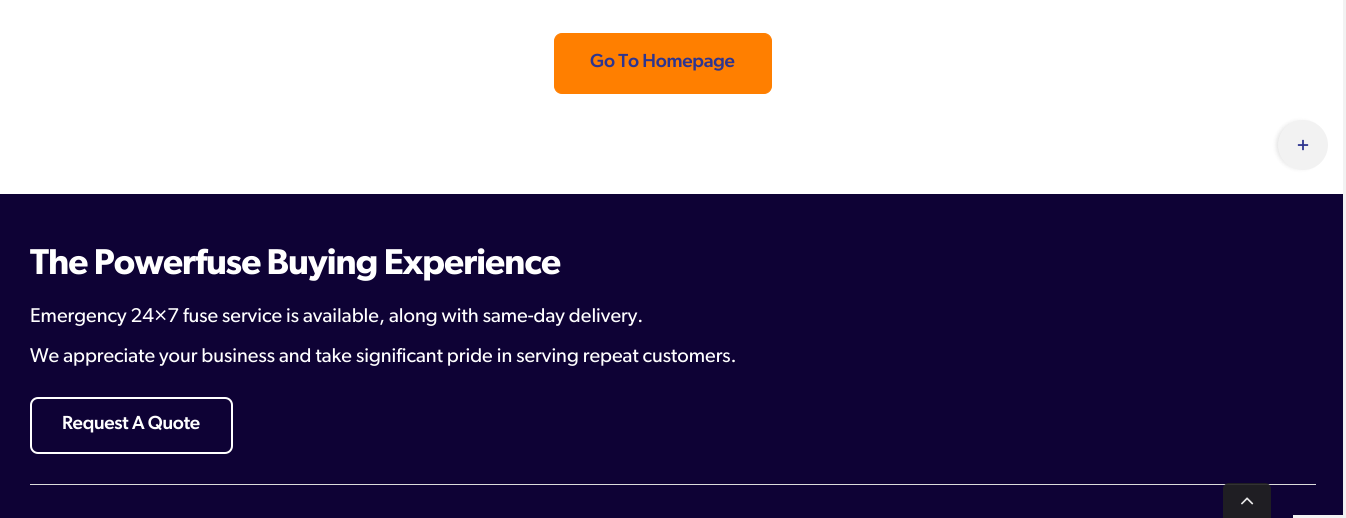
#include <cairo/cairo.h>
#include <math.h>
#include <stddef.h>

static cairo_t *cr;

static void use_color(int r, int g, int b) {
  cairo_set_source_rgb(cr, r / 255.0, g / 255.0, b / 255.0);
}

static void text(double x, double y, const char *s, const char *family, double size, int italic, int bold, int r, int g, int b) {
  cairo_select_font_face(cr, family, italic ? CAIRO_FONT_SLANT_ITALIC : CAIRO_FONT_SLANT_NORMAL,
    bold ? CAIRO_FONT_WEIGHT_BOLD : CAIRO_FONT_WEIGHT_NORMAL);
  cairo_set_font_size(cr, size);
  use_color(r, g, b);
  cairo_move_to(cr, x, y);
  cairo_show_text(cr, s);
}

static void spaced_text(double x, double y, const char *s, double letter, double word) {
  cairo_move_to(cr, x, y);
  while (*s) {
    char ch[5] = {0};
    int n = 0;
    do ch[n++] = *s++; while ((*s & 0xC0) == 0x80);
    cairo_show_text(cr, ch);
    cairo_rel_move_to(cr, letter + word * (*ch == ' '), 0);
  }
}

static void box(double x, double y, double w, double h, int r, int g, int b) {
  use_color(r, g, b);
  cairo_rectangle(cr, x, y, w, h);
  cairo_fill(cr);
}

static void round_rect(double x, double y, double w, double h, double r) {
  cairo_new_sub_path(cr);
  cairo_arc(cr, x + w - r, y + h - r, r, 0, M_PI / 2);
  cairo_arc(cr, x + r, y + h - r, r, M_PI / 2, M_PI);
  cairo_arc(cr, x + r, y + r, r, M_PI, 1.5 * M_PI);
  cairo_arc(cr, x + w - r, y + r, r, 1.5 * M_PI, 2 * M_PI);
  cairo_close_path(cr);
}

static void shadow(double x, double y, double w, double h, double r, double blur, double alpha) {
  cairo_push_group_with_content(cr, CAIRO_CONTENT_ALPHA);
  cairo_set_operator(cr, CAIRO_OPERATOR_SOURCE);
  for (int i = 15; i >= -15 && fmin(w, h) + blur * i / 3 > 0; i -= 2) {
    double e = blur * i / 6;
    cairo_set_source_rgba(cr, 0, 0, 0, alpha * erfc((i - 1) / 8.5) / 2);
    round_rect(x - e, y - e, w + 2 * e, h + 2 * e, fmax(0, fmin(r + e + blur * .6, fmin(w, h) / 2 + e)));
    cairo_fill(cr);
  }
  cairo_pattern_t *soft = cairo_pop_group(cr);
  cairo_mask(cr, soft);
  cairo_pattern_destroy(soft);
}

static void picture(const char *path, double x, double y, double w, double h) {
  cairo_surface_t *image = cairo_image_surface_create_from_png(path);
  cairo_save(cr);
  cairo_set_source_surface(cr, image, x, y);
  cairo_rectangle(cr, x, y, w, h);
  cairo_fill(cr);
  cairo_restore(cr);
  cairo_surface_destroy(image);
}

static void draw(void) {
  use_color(255, 255, 255);
  cairo_paint(cr);
  use_color(255, 127, 0);
  round_rect(554.5, 33.5, 217, 60, 7.5);
  cairo_fill_preserve(cr);
  cairo_set_line_width(cr, 1);
  cairo_stroke(cr);
  box(0, 194, 1343, 324, 14, 2, 53);
  box(1293, 515, 53, 3, 242, 242, 242);
  use_color(0, 0, 0);
  shadow(1277, 122, 46, 46, 23, 2.5, 0.14);
  use_color(242, 242, 242);
  cairo_arc(cr, 1303, 145, 25, 0, 2 * M_PI);
  cairo_fill(cr);
  picture("img_01.png", 1297, 139, 12, 12);
  box(1343, 0, 3, 515, 242, 242, 242);
  round_rect(31, 398, 201, 55, 7);
  use_color(255, 255, 255);
  cairo_set_line_width(cr, 2);
  cairo_stroke(cr);
  box(30, 484, 1286, 1, 219, 219, 219);
  cairo_set_source_rgba(cr, 0.133, 0.133, 0.133, 0.9);
  cairo_new_path(cr);
  cairo_move_to(cr, 1229, 483);
  cairo_line_to(cr, 1265, 483);
  cairo_curve_to(cr, 1268.5, 483, 1271, 485.5, 1271, 489);
  cairo_line_to(cr, 1271, 518);
  cairo_line_to(cr, 1223, 518);
  cairo_line_to(cr, 1223, 489);
  cairo_curve_to(cr, 1223, 485.5, 1225.5, 483, 1229, 483);
  cairo_close_path(cr);
  cairo_fill(cr);
  picture("img_02.png", 1241, 497, 13, 8);
  cairo_select_font_face(cr, "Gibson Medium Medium", CAIRO_FONT_SLANT_NORMAL, CAIRO_FONT_WEIGHT_NORMAL);
  cairo_set_font_size(cr, 19);
  use_color(46, 53, 143);
  spaced_text(590, 67, "Go To Homepage", -0.25, 0);
  cairo_select_font_face(cr, "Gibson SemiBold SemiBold", CAIRO_FONT_SLANT_NORMAL, CAIRO_FONT_WEIGHT_NORMAL);
  cairo_set_font_size(cr, 36);
  use_color(255, 255, 255);
  spaced_text(30, 274, "The Powerfuse Buying Experience", -0.9, 0);
  text(30, 322, "Emergency 24×7 fuse service is available, along with same-day delivery.", "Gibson", 20, 0, 0, 255, 255, 255);
  text(30, 362, "We appreciate your business and take significant pride in serving repeat customers.", "Gibson", 20, 0, 0, 255, 255, 255);
  cairo_select_font_face(cr, "Gibson Medium Medium", CAIRO_FONT_SLANT_NORMAL, CAIRO_FONT_WEIGHT_NORMAL);
  cairo_set_font_size(cr, 19);
  spaced_text(62, 429, "Request A Quote", -0.25, 0);
}

int main(void) {
  cairo_surface_t *surface = cairo_image_surface_create(CAIRO_FORMAT_RGB24, 1346, 518);
  cr = cairo_create(surface);
  cairo_font_options_t *options = cairo_font_options_create();
  cairo_font_options_set_hint_metrics(options, CAIRO_HINT_METRICS_OFF);
  cairo_font_options_set_hint_style(options, CAIRO_HINT_STYLE_NONE);
  cairo_set_font_options(cr, options);
  cairo_set_miter_limit(cr, 4);
  draw();
  cairo_surface_write_to_png(surface, "out.png");
  cairo_font_options_destroy(options);
  cairo_destroy(cr);
  cairo_surface_destroy(surface);
  return 0;
}
